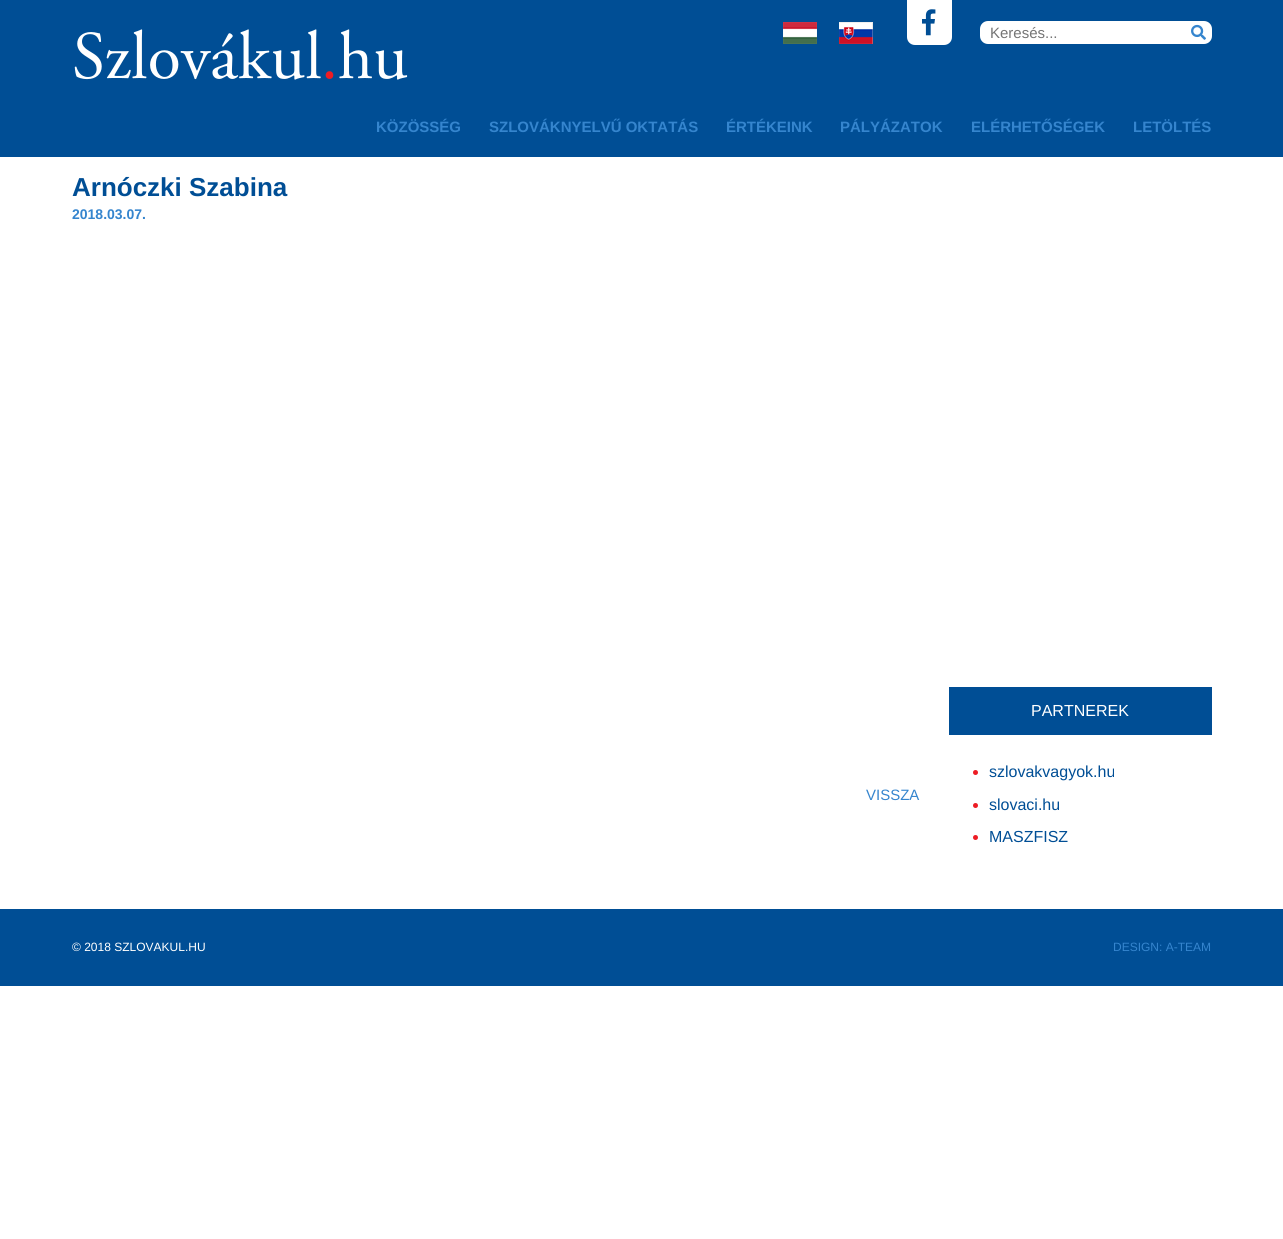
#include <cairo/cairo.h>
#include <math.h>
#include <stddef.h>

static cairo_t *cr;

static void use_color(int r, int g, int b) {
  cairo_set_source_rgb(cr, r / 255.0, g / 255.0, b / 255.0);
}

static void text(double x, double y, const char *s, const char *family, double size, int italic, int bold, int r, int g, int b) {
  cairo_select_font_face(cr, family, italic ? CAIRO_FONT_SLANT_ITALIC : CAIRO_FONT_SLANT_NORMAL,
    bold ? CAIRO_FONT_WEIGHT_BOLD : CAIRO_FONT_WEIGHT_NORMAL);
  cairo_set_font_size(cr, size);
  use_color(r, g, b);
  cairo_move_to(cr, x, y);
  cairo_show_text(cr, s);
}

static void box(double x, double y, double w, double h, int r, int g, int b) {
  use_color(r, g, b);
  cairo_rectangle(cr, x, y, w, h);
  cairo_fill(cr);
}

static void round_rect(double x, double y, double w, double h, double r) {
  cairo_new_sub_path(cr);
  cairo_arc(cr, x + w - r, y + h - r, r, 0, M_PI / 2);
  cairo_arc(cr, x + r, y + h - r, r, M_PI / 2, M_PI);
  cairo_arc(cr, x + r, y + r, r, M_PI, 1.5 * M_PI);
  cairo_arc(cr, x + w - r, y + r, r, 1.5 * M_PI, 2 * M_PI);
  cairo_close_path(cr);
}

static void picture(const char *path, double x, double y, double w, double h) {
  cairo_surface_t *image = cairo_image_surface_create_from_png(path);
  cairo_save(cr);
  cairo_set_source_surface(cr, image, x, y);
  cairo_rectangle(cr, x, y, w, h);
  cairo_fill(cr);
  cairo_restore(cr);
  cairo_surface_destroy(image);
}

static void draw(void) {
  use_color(255, 255, 255);
  cairo_paint(cr);
  box(0, 0, 1283, 157, 0, 78, 149);
  picture("img_01.png", 74, 29, 247, 51);
  picture("img_02.png", 325, 71, 9, 8);
  picture("img_03.png", 339, 29, 69, 51);
  picture("img_04.png", 783, 22, 34, 22);
  picture("img_05.png", 839, 22, 34, 22);
  use_color(255, 255, 255);
  cairo_new_path(cr);
  cairo_move_to(cr, 907, 0);
  cairo_line_to(cr, 952, 0);
  cairo_line_to(cr, 952, 37);
  cairo_curve_to(cr, 952, 41.5, 948.5, 45, 944, 45);
  cairo_line_to(cr, 915, 45);
  cairo_curve_to(cr, 910.5, 45, 907, 41.5, 907, 37);
  cairo_close_path(cr);
  cairo_fill(cr);
  picture("img_06.png", 922, 9, 14, 27);
  round_rect(980, 21, 232, 23, 8);
  cairo_fill(cr);
  picture("img_07.png", 1191, 24, 15, 16);
  box(949, 687, 263, 48, 0, 78, 149);
  use_color(237, 28, 36);
  cairo_arc(cr, 975.5, 772.5, 2.5, 0, 2 * M_PI);
  cairo_fill(cr);
  cairo_arc(cr, 975.5, 805.5, 2.5, 0, 2 * M_PI);
  cairo_fill(cr);
  cairo_arc(cr, 975.5, 837.5, 2.5, 0, 2 * M_PI);
  cairo_fill(cr);
  box(0, 909, 1283, 77, 0, 78, 149);
  text(990, 38, "Keresés...", "Liberation Sans", 15, 0, 0, 117, 117, 117);
  text(376, 132, "KÖZÖSSÉG", "Liberation Sans", 15, 0, 1, 53, 133, 206);
  text(489, 132, "SZLOVÁKNYELVŰ OKTATÁS", "Liberation Sans", 15, 0, 1, 53, 133, 206);
  text(726, 132, "ÉRTÉKEINK", "Liberation Sans", 15, 0, 1, 53, 133, 206);
  text(840, 132, "PÁLYÁZATOK", "Liberation Sans", 15, 0, 1, 53, 133, 206);
  text(971, 132, "ELÉRHETŐSÉGEK", "Liberation Sans", 15, 0, 1, 53, 133, 206);
  text(1133, 132, "LETÖLTÉS", "Liberation Sans", 15, 0, 1, 53, 133, 206);
  text(72, 196, "Arnóczki Szabina", "Liberation Sans", 26, 0, 1, 0, 78, 149);
  text(72, 219, "2018.03.07.", "Liberation Sans", 14, 0, 1, 53, 133, 206);
  text(866, 800, "VISSZA", "Liberation Sans", 15, 0, 0, 53, 133, 206);
  text(1031, 716, "PARTNEREK", "Liberation Sans", 16, 0, 0, 255, 255, 255);
  text(989, 777, "szlovakvagyok.hu", "Liberation Sans", 16, 0, 0, 0, 78, 149);
  text(989, 810, "slovaci.hu", "Liberation Sans", 16, 0, 0, 0, 78, 149);
  text(989, 842, "MASZFISZ", "Liberation Sans", 16, 0, 0, 0, 78, 149);
  text(72, 951, "© 2018 SZLOVAKUL.HU", "Liberation Sans", 12, 0, 0, 255, 255, 255);
  text(1113, 951, "DESIGN: A-TEAM", "Liberation Sans", 12, 0, 0, 53, 133, 206);
}

int main(void) {
  cairo_surface_t *surface = cairo_image_surface_create(CAIRO_FORMAT_RGB24, 1283, 1239);
  cr = cairo_create(surface);
  cairo_font_options_t *options = cairo_font_options_create();
  cairo_font_options_set_hint_metrics(options, CAIRO_HINT_METRICS_OFF);
  cairo_font_options_set_hint_style(options, CAIRO_HINT_STYLE_NONE);
  cairo_set_font_options(cr, options);
  cairo_set_miter_limit(cr, 4);
  draw();
  cairo_surface_write_to_png(surface, "out.png");
  cairo_font_options_destroy(options);
  cairo_destroy(cr);
  cairo_surface_destroy(surface);
  return 0;
}
